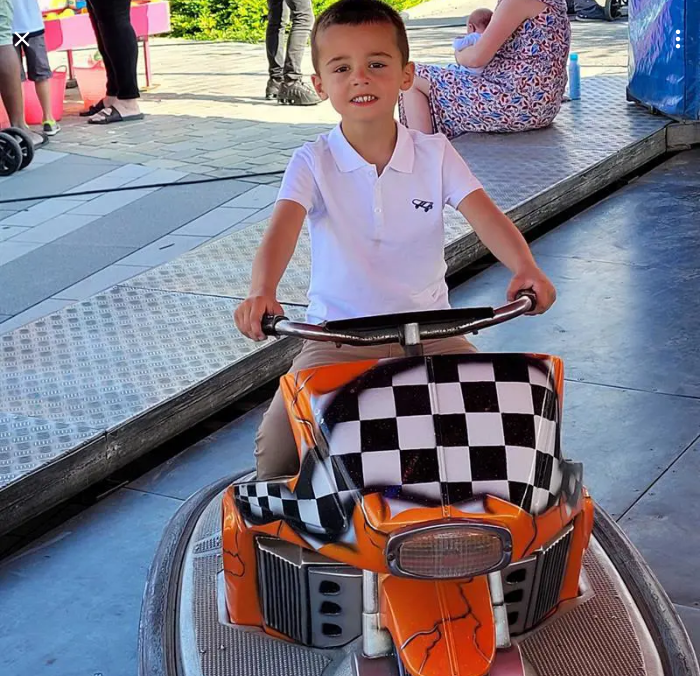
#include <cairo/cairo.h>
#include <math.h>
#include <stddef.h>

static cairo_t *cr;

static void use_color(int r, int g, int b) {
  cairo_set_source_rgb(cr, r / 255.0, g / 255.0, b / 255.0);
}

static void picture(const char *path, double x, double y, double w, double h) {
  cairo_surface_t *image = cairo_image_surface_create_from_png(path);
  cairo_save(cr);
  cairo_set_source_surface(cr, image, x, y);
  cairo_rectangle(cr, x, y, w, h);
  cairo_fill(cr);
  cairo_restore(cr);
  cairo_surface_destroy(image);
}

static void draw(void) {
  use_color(255, 255, 255);
  cairo_paint(cr);
  picture("img_01.png", 0, 0, 700, 676);
  picture("img_02.png", 14, 31, 16, 16);
  picture("img_03.png", 675, 29, 6, 20);
}

int main(void) {
  cairo_surface_t *surface = cairo_image_surface_create(CAIRO_FORMAT_RGB24, 700, 676);
  cr = cairo_create(surface);
  cairo_font_options_t *options = cairo_font_options_create();
  cairo_font_options_set_hint_metrics(options, CAIRO_HINT_METRICS_OFF);
  cairo_font_options_set_hint_style(options, CAIRO_HINT_STYLE_NONE);
  cairo_set_font_options(cr, options);
  cairo_set_miter_limit(cr, 4);
  draw();
  cairo_surface_write_to_png(surface, "out.png");
  cairo_font_options_destroy(options);
  cairo_destroy(cr);
  cairo_surface_destroy(surface);
  return 0;
}
